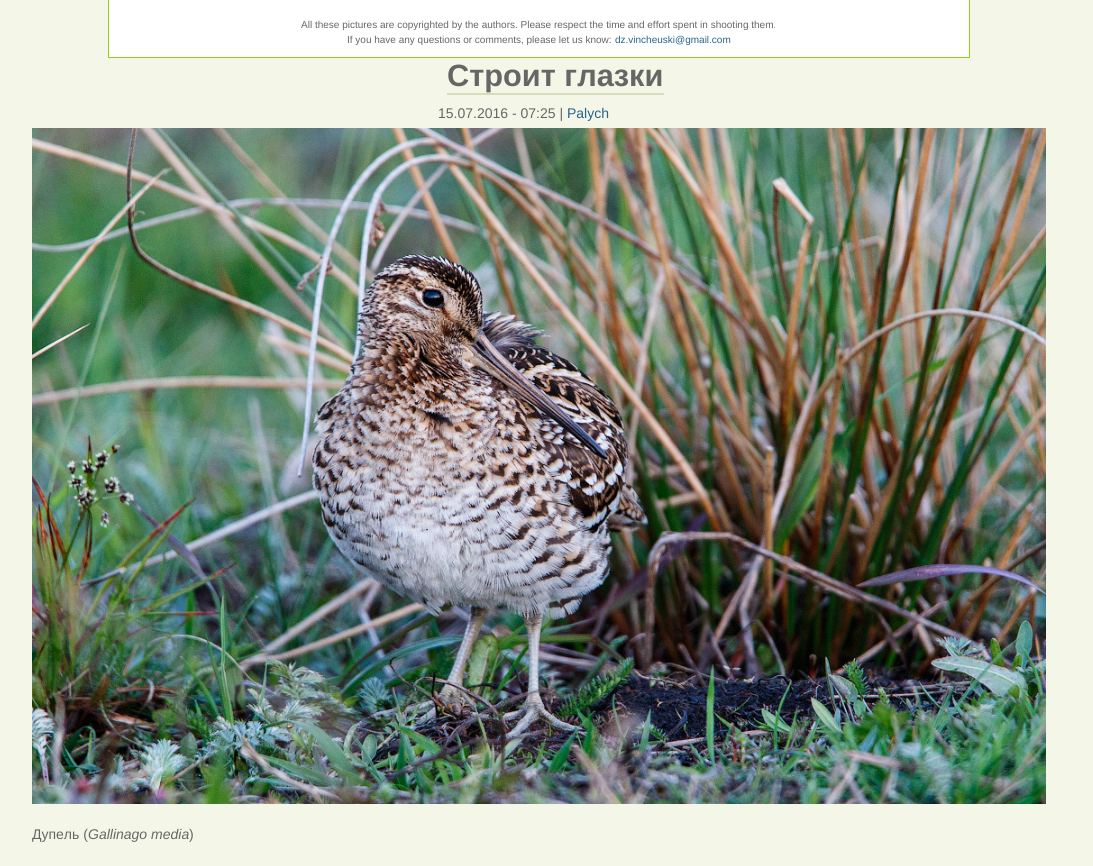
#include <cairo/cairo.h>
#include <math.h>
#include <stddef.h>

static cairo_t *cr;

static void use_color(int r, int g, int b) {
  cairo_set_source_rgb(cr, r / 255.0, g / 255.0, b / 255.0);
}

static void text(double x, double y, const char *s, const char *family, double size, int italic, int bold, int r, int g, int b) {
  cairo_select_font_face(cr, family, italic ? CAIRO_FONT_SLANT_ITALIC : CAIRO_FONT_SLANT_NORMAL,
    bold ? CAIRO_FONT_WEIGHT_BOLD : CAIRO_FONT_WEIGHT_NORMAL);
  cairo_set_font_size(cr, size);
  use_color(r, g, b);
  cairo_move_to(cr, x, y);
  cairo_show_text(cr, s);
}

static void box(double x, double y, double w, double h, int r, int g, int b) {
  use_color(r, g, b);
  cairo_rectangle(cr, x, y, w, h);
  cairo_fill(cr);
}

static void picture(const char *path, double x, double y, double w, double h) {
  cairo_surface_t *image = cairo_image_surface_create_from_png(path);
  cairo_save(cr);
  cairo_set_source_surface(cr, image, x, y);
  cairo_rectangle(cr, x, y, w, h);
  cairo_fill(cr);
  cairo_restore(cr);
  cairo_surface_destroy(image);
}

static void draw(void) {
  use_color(244, 247, 231);
  cairo_paint(cr);
  use_color(255, 255, 255);
  cairo_rectangle(cr, 108.5, -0.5, 861, 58);
  cairo_fill_preserve(cr);
  use_color(148, 206, 24);
  cairo_set_line_width(cr, 1);
  cairo_stroke(cr);
  box(447, 93, 217, 2, 214, 221, 185);
  picture("img_01.png", 32, 128, 1014, 676);
  text(301, 28, "All these pictures are copyrighted by the authors. Please respect the time and effort spent in shooting them.", "Liberation Sans", 10, 0, 0, 102, 102, 102);
  text(347, 43, "If you have any questions or comments, please let us know:", "Liberation Sans", 10, 0, 0, 102, 102, 102);
  text(615, 43, "dz.vincheuski@gmail.com", "Liberation Sans", 10, 0, 0, 39, 99, 140);
  text(447, 86, "Строит глазки", "Liberation Sans", 30.75, 0, 1, 102, 102, 102);
  text(438, 118, "15.07.2016 - 07:25 |", "Liberation Sans", 14, 0, 0, 102, 102, 102);
  text(567, 118, "Palych", "Liberation Sans", 14, 0, 0, 39, 99, 140);
  text(32, 839, "Дупель (", "Liberation Sans", 14, 0, 0, 102, 102, 102);
  text(88, 839, "Gallinago media", "Liberation Sans", 14, 1, 0, 102, 102, 102);
  text(189, 839, ")", "Liberation Sans", 14, 0, 0, 102, 102, 102);
}

int main(void) {
  cairo_surface_t *surface = cairo_image_surface_create(CAIRO_FORMAT_RGB24, 1093, 866);
  cr = cairo_create(surface);
  cairo_font_options_t *options = cairo_font_options_create();
  cairo_font_options_set_hint_metrics(options, CAIRO_HINT_METRICS_OFF);
  cairo_font_options_set_hint_style(options, CAIRO_HINT_STYLE_NONE);
  cairo_set_font_options(cr, options);
  cairo_set_miter_limit(cr, 4);
  draw();
  cairo_surface_write_to_png(surface, "out.png");
  cairo_font_options_destroy(options);
  cairo_destroy(cr);
  cairo_surface_destroy(surface);
  return 0;
}
